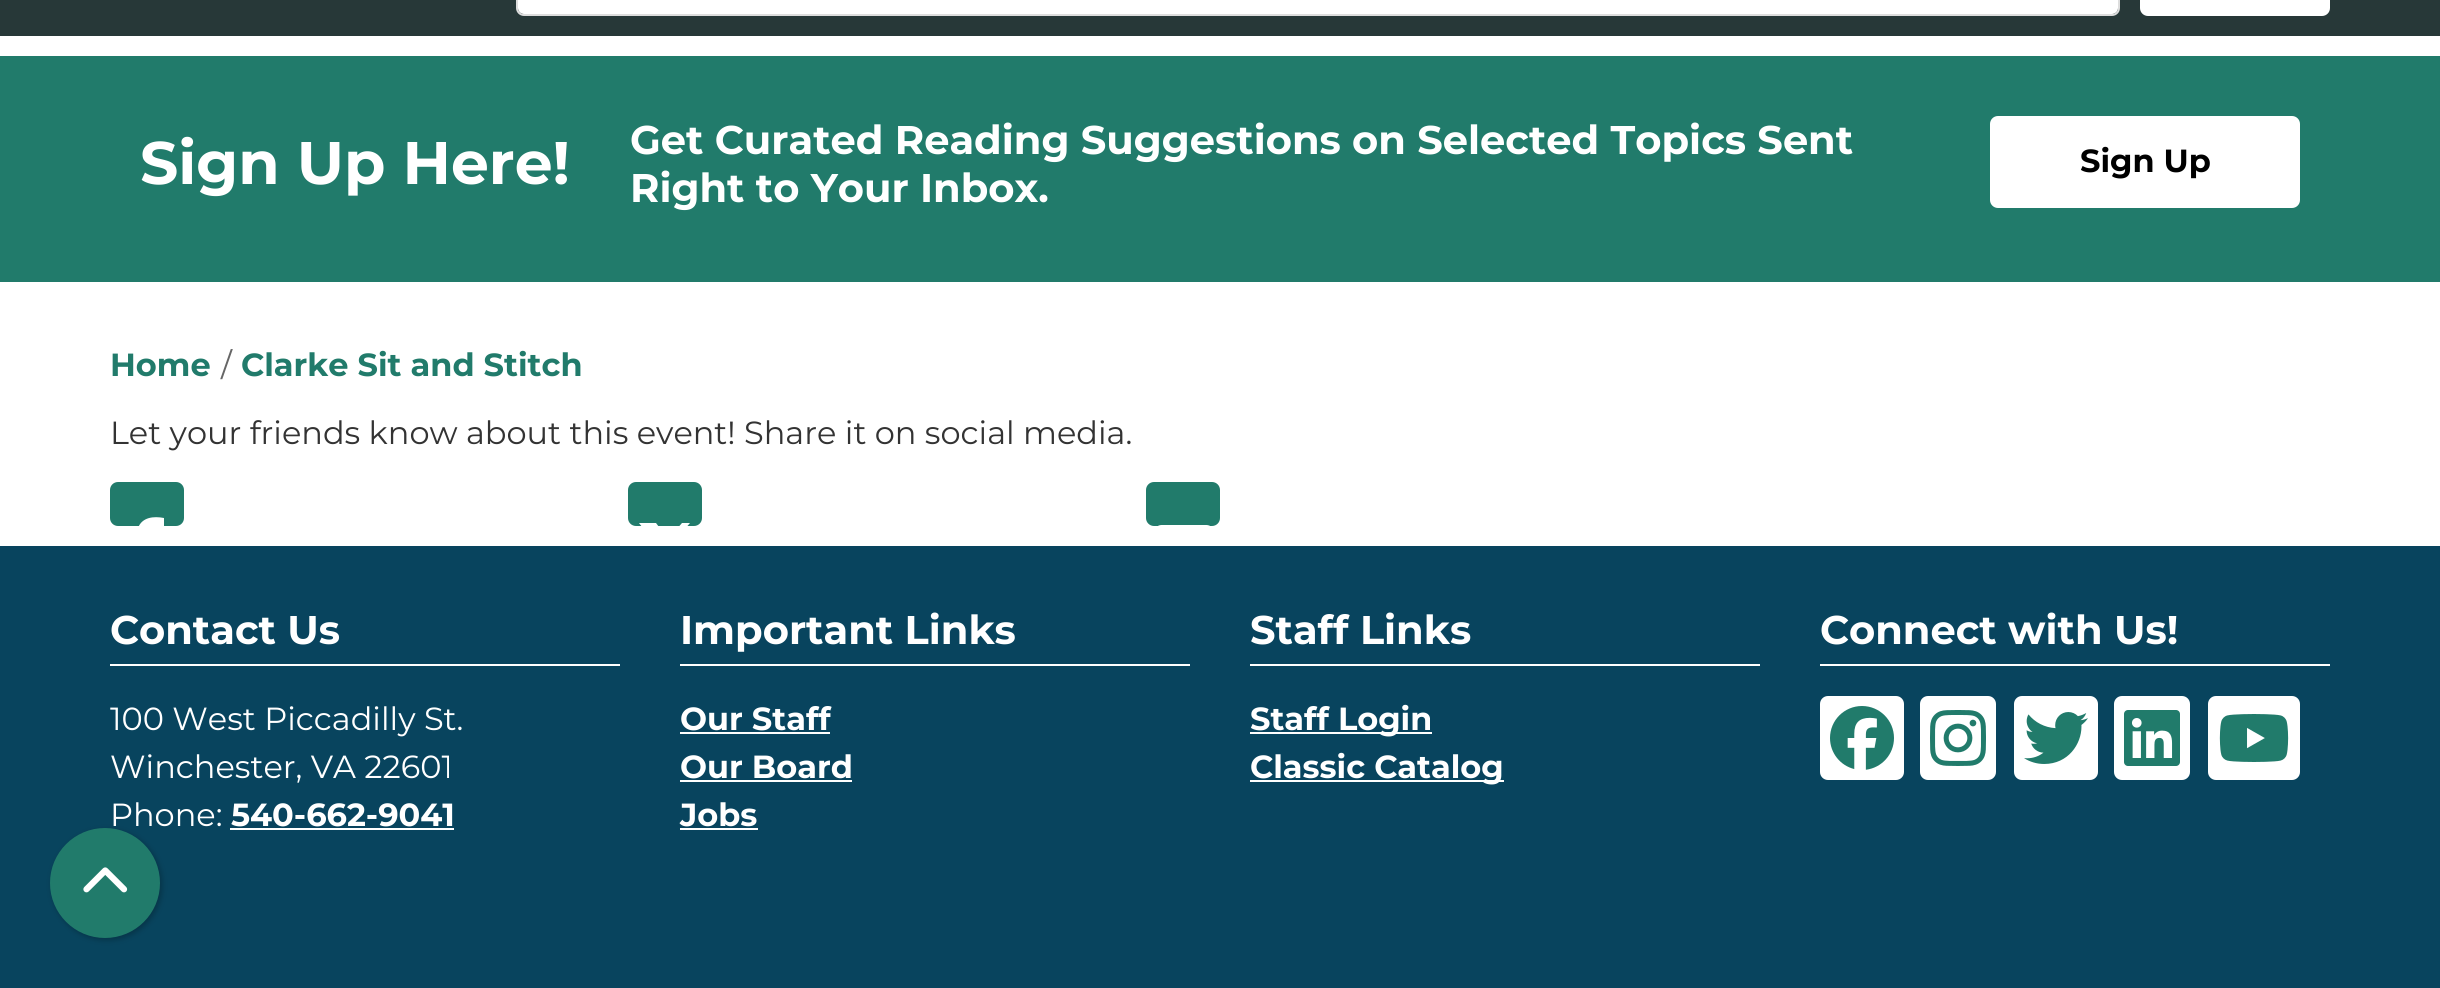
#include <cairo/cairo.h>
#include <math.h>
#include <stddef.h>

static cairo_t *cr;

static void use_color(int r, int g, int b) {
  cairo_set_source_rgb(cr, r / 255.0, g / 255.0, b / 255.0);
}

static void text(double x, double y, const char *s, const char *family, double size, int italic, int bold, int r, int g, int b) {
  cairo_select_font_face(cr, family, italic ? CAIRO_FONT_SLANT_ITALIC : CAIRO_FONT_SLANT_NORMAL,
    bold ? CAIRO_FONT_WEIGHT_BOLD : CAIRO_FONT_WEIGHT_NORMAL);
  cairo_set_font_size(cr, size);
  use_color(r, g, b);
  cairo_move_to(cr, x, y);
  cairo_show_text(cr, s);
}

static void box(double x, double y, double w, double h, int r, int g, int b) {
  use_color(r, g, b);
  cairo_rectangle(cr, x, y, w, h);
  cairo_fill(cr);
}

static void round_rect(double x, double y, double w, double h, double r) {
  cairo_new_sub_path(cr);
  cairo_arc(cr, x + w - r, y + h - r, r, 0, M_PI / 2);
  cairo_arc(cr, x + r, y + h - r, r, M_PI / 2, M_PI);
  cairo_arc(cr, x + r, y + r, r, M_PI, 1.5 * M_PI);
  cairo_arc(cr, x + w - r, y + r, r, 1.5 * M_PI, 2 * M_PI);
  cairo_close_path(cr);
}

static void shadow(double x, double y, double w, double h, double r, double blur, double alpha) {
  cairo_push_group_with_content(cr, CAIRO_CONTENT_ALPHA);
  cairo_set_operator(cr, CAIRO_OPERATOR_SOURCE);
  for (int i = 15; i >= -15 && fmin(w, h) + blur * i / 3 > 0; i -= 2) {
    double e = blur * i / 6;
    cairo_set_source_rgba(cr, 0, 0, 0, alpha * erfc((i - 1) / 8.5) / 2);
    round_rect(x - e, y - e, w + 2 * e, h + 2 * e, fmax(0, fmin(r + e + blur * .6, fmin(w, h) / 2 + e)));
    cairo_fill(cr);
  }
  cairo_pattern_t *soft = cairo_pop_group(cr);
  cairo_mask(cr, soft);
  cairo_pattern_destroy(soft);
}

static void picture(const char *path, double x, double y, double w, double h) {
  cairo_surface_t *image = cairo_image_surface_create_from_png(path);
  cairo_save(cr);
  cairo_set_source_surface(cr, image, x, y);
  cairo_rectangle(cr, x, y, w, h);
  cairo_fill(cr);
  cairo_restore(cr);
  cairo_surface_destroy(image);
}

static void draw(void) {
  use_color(255, 255, 255);
  cairo_paint(cr);
  box(0, 0, 2440, 36, 39, 56, 56);
  use_color(255, 255, 255);
  round_rect(518, -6, 1600, 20, 6);
  cairo_fill(cr);
  round_rect(517, -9, 1602, 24, 7);
  use_color(221, 221, 221);
  cairo_stroke(cr);
  use_color(255, 255, 255);
  round_rect(2141, -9, 188, 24, 7);
  cairo_fill_preserve(cr);
  cairo_stroke(cr);
  box(0, 56, 2440, 226, 33, 123, 107);
  use_color(255, 255, 255);
  round_rect(1991, 117, 308, 90, 7);
  cairo_fill_preserve(cr);
  cairo_stroke(cr);
  use_color(33, 123, 107);
  round_rect(111, 483, 72, 42, 7);
  cairo_fill_preserve(cr);
  cairo_stroke(cr);
  use_color(255, 255, 255);
  cairo_new_path(cr);
  cairo_move_to(cr, 137, 553);
  cairo_line_to(cr, 137, 578);
  cairo_line_to(cr, 137, 553);
  cairo_line_to(cr, 137, 578);
  cairo_line_to(cr, 151, 578);
  cairo_line_to(cr, 151, 553);
  cairo_line_to(cr, 161, 553);
  cairo_line_to(cr, 163, 541);
  cairo_line_to(cr, 151, 541);
  cairo_curve_to(cr, 151, 531, 153, 527, 164, 529);
  cairo_line_to(cr, 164, 518);
  cairo_curve_to(cr, 154, 516, 142, 517, 138, 528);
  cairo_curve_to(cr, 137, 532, 137, 537, 137, 541);
  cairo_line_to(cr, 130, 541);
  cairo_line_to(cr, 130, 553);
  cairo_close_path(cr);
  cairo_fill(cr);
  use_color(33, 123, 107);
  round_rect(629, 483, 72, 42, 7);
  cairo_fill_preserve(cr);
  cairo_stroke(cr);
  use_color(255, 255, 255);
  cairo_new_path(cr);
  cairo_move_to(cr, 682, 523);
  cairo_line_to(cr, 690, 523);
  cairo_line_to(cr, 682, 523);
  cairo_line_to(cr, 690, 523);
  cairo_line_to(cr, 672, 544);
  cairo_line_to(cr, 693, 572);
  cairo_line_to(cr, 676, 572);
  cairo_line_to(cr, 663, 555);
  cairo_line_to(cr, 649, 572);
  cairo_line_to(cr, 640, 572);
  cairo_line_to(cr, 660, 550);
  cairo_line_to(cr, 639, 523);
  cairo_line_to(cr, 656, 523);
  cairo_line_to(cr, 668, 539);
  cairo_close_path(cr);
  cairo_move_to(cr, 679, 567);
  cairo_line_to(cr, 683, 567);
  cairo_line_to(cr, 679, 567);
  cairo_line_to(cr, 683, 567);
  cairo_line_to(cr, 654, 528);
  cairo_line_to(cr, 649, 528);
  cairo_close_path(cr);
  cairo_fill(cr);
  use_color(33, 123, 107);
  round_rect(1147, 483, 72, 42, 7);
  cairo_fill_preserve(cr);
  cairo_stroke(cr);
  picture("img_01.png", 1158, 525, 52, 1);
  box(0, 546, 2440, 442, 8, 68, 94);
  box(110, 664, 510, 2, 255, 255, 255);
  box(230, 828, 224, 2, 255, 255, 255);
  box(680, 664, 510, 2, 255, 255, 255);
  box(680, 732, 150, 2, 255, 255, 255);
  box(680, 780, 172, 2, 255, 255, 255);
  box(680, 828, 78, 2, 255, 255, 255);
  box(1250, 664, 510, 2, 255, 255, 255);
  box(1250, 732, 182, 2, 255, 255, 255);
  box(1250, 780, 254, 2, 255, 255, 255);
  box(1820, 664, 510, 2, 255, 255, 255);
  round_rect(1820, 696, 84, 84, 8);
  cairo_fill(cr);
  picture("img_02.png", 1830, 706, 64, 64);
  round_rect(1920, 696, 76, 84, 8);
  cairo_fill(cr);
  picture("img_03.png", 1930, 710, 56, 56);
  round_rect(2014, 696, 84, 84, 8);
  cairo_fill(cr);
  picture("img_04.png", 2024, 712, 64, 52);
  round_rect(2114, 696, 76, 84, 8);
  cairo_fill(cr);
  picture("img_05.png", 2124, 710, 56, 56);
  round_rect(2208, 696, 92, 84, 8);
  cairo_fill(cr);
  picture("img_06.png", 2219, 714, 70, 48);
  use_color(0, 0, 0);
  shadow(52, 830, 110, 110, 55, 3, 0.25);
  use_color(33, 123, 107);
  cairo_arc(cr, 105, 883, 54, 0, 2 * M_PI);
  cairo_fill_preserve(cr);
  cairo_stroke(cr);
  picture("img_07.png", 83, 867, 45, 26);
  text(140, 184, "Sign Up Here!", "Montserrat", 60, 0, 1, 255, 255, 255);
  text(630, 154, "Get Curated Reading Suggestions on Selected Topics Sent", "Montserrat", 40, 0, 1, 255, 255, 255);
  text(630, 202, "Right to Your Inbox.", "Montserrat", 40, 0, 1, 255, 255, 255);
  text(2080, 172, "Sign Up", "Montserrat", 32, 0, 1, 0, 0, 0);
  text(110, 376, "Home", "Montserrat", 32, 0, 1, 33, 123, 107);
  text(221, 376, "/", "Montserrat", 32, 0, 0, 102, 102, 102);
  text(241, 376, "Clarke Sit and Stitch", "Montserrat", 32, 0, 1, 33, 123, 107);
  text(110, 444, "Let your friends know about this event! Share it on social media.", "Montserrat", 32, 0, 0, 51, 51, 51);
  text(110, 644, "Contact Us", "Montserrat", 40, 0, 1, 255, 255, 255);
  text(110, 730, "100 West Piccadilly St.", "Montserrat", 32, 0, 0, 255, 255, 255);
  text(110, 778, "Winchester, VA 22601", "Montserrat", 32, 0, 0, 255, 255, 255);
  text(110, 826, "Phone:", "Montserrat", 32, 0, 0, 255, 255, 255);
  text(231, 826, "540-662-9041", "Montserrat", 32, 0, 1, 255, 255, 255);
  text(680, 644, "Important Links", "Montserrat", 40, 0, 1, 255, 255, 255);
  text(680, 730, "Our Staff", "Montserrat", 32, 0, 1, 255, 255, 255);
  text(680, 778, "Our Board", "Montserrat", 32, 0, 1, 255, 255, 255);
  text(680, 826, "Jobs", "Montserrat", 32, 0, 1, 255, 255, 255);
  text(1250, 644, "Staff Links", "Montserrat", 40, 0, 1, 255, 255, 255);
  text(1250, 730, "Staff Login", "Montserrat", 32, 0, 1, 255, 255, 255);
  text(1250, 778, "Classic Catalog", "Montserrat", 32, 0, 1, 255, 255, 255);
  text(1820, 644, "Connect with Us!", "Montserrat", 40, 0, 1, 255, 255, 255);
}

int main(void) {
  cairo_surface_t *surface = cairo_image_surface_create(CAIRO_FORMAT_RGB24, 2440, 988);
  cr = cairo_create(surface);
  cairo_font_options_t *options = cairo_font_options_create();
  cairo_font_options_set_hint_metrics(options, CAIRO_HINT_METRICS_OFF);
  cairo_font_options_set_hint_style(options, CAIRO_HINT_STYLE_NONE);
  cairo_set_font_options(cr, options);
  cairo_set_miter_limit(cr, 4);
  draw();
  cairo_surface_write_to_png(surface, "out.png");
  cairo_font_options_destroy(options);
  cairo_destroy(cr);
  cairo_surface_destroy(surface);
  return 0;
}
